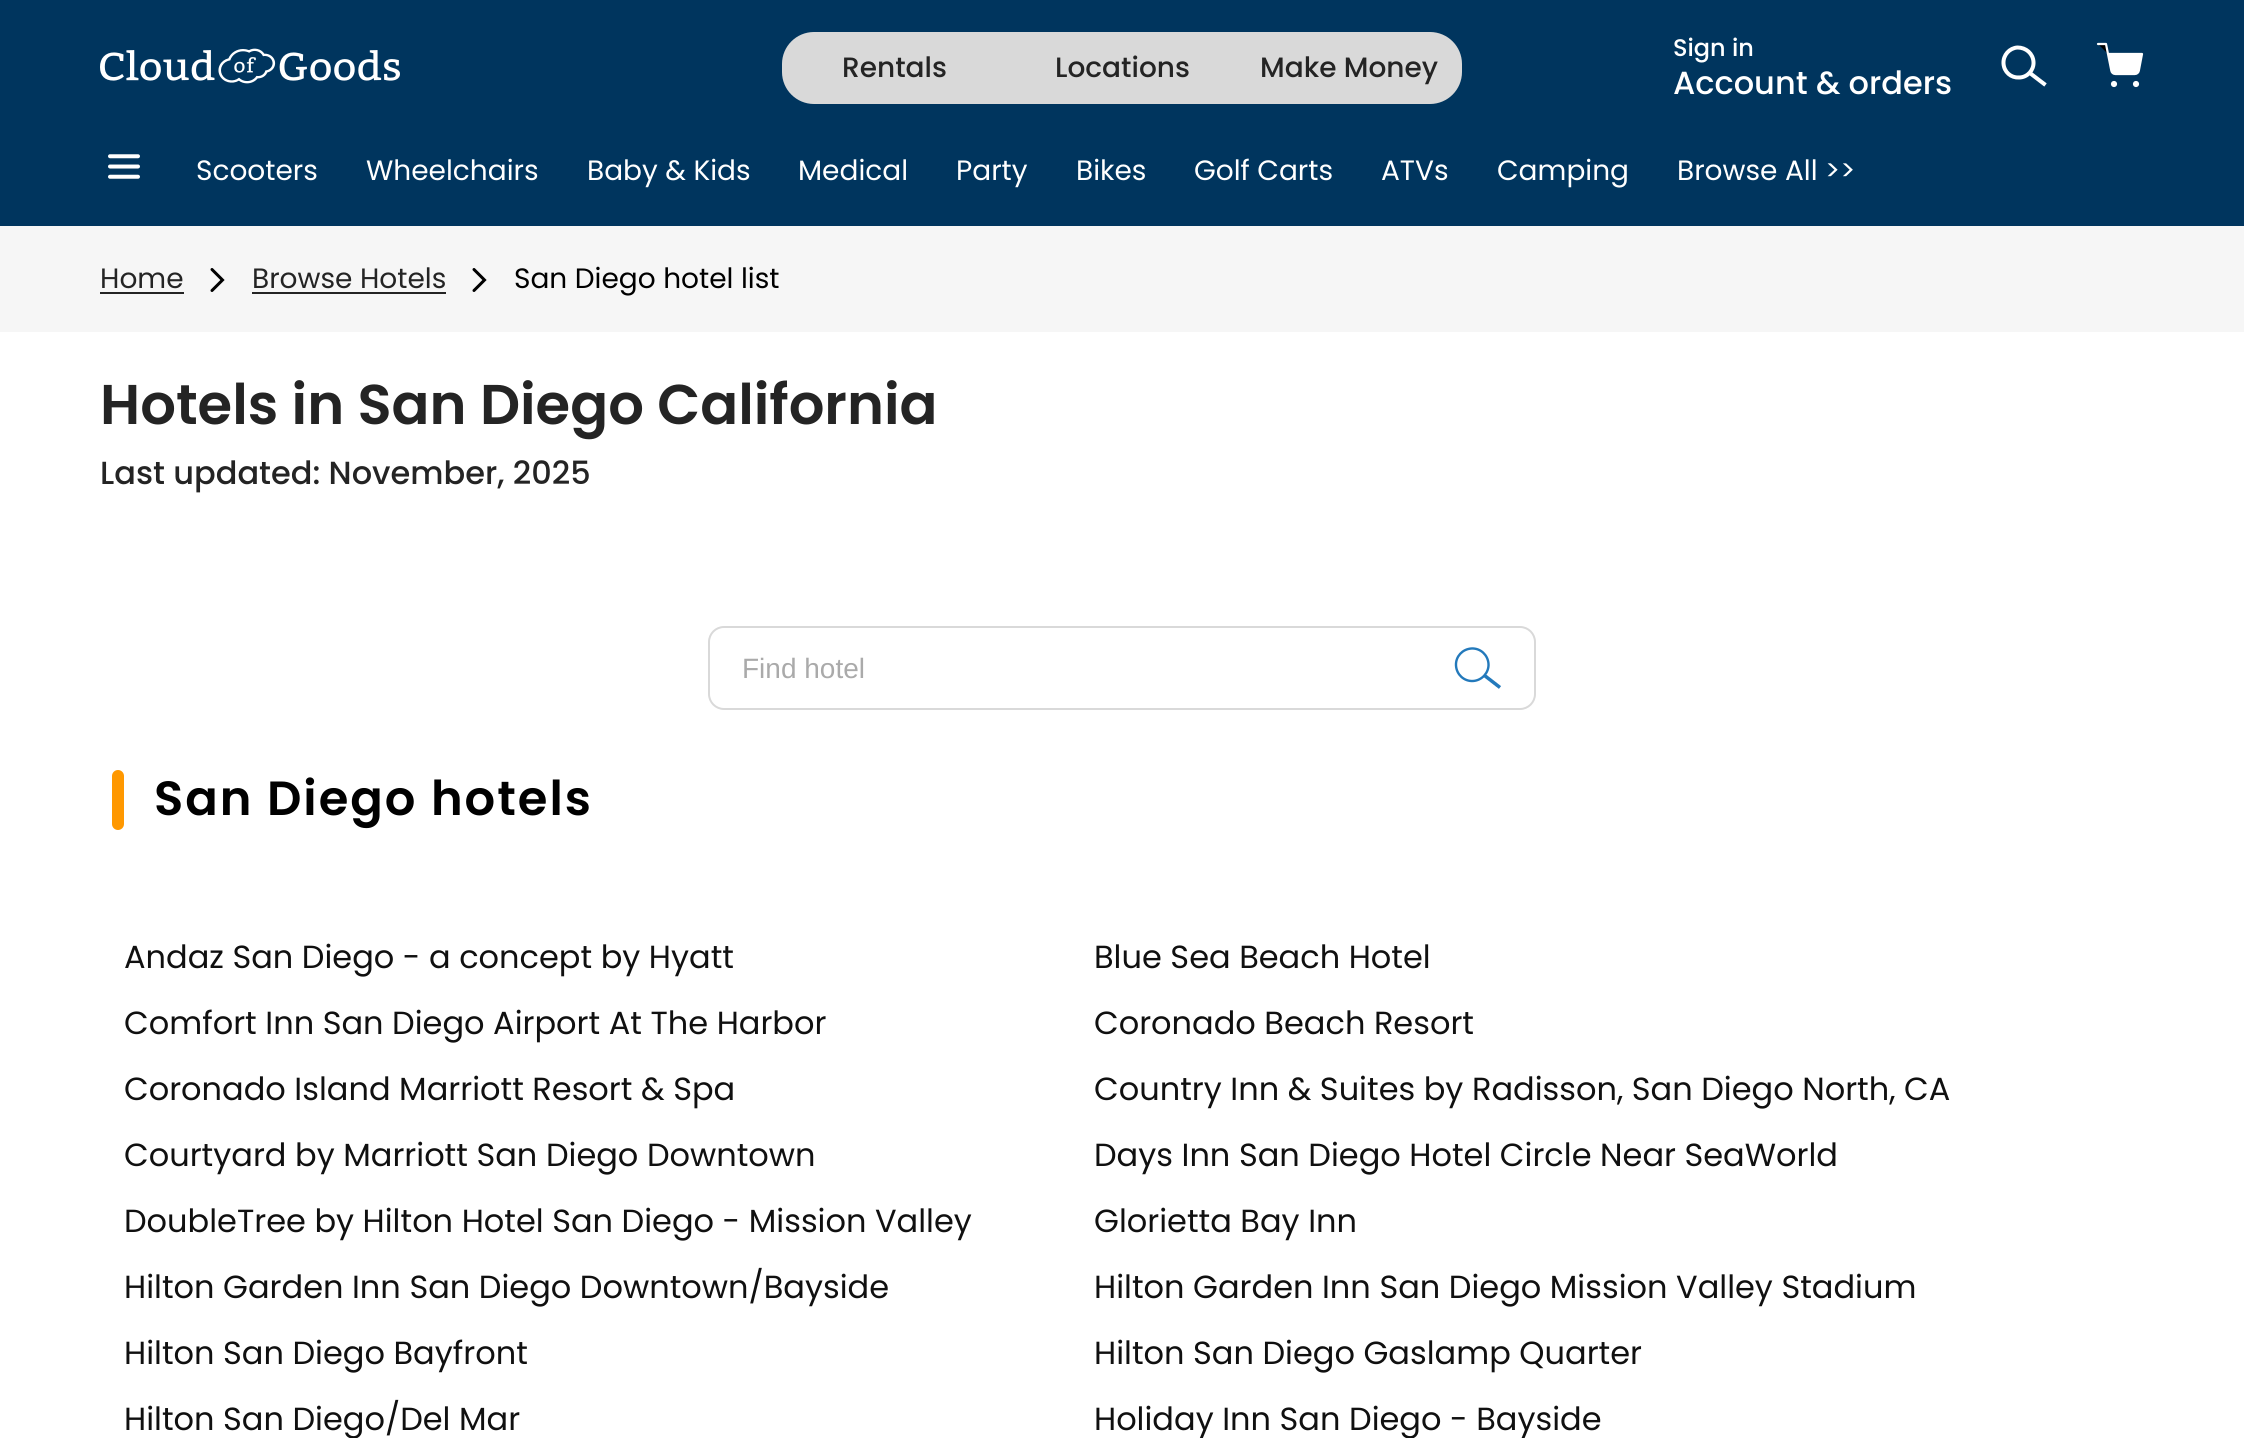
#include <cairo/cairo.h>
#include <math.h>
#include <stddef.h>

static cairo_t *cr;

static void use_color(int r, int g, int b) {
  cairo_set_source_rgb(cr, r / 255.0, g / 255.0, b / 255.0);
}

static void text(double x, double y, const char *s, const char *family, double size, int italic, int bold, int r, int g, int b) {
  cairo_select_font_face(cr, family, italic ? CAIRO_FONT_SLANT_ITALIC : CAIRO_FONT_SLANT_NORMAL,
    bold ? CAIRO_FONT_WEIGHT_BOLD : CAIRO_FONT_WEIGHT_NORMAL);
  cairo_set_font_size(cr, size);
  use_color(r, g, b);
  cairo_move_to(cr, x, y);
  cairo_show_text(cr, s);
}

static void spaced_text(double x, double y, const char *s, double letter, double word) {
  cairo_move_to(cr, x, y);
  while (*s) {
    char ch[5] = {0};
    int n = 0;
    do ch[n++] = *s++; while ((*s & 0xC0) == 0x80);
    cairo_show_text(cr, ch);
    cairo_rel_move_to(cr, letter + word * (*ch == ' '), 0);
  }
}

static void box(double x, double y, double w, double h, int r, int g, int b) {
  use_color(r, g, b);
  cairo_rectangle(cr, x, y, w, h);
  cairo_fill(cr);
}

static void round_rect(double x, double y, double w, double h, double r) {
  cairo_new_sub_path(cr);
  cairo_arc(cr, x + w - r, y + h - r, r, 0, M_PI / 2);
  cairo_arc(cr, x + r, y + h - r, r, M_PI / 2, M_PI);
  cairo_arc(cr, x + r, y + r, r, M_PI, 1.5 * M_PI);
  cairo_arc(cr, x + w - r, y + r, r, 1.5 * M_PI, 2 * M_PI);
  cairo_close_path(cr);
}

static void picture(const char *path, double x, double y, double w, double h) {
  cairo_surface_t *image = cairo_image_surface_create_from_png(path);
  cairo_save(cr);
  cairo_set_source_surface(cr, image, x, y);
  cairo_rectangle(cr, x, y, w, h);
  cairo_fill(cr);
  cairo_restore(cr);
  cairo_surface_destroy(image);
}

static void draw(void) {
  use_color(255, 255, 255);
  cairo_paint(cr);
  box(0, 0, 2244, 226, 0, 53, 94);
  picture("img_01.png", 100, 48, 300, 36);
  use_color(217, 217, 217);
  round_rect(782, 32, 680, 72, 32);
  cairo_fill(cr);
  cairo_new_path(cr);
  cairo_move_to(cr, 2017.5, 47.5);
  cairo_curve_to(cr, 2026, 47.5, 2033, 53.5, 2033.5, 62);
  cairo_curve_to(cr, 2034, 70, 2027.5, 77.5, 2019, 77.5);
  cairo_curve_to(cr, 2011, 78, 2004, 72, 2003.5, 63.5);
  cairo_curve_to(cr, 2003, 55, 2009.5, 48, 2017.5, 47.5);
  cairo_close_path(cr);
  cairo_move_to(cr, 2030.5, 73.5);
  cairo_line_to(cr, 2045.5, 85);
  use_color(255, 255, 255);
  cairo_set_line_width(cr, 4);
  cairo_stroke(cr);
  picture("img_02.png", 2096, 42, 48, 46);
  picture("img_03.png", 108, 154, 32, 25);
  box(0, 226, 2244, 106, 246, 246, 246);
  box(100, 292, 84, 2, 36, 36, 36);
  cairo_new_path(cr);
  cairo_move_to(cr, 212, 269.5);
  cairo_line_to(cr, 222.5, 280);
  cairo_line_to(cr, 212, 290.5);
  use_color(0, 0, 0);
  cairo_set_line_width(cr, 3);
  cairo_set_line_cap(cr, CAIRO_LINE_CAP_ROUND);
  cairo_stroke(cr);
  box(252, 292, 194, 2, 36, 36, 36);
  cairo_new_path(cr);
  cairo_move_to(cr, 474, 269.5);
  cairo_line_to(cr, 484.5, 280);
  cairo_line_to(cr, 474, 290.5);
  use_color(0, 0, 0);
  cairo_stroke(cr);
  round_rect(709, 627, 826, 82, 15);
  use_color(217, 217, 217);
  cairo_set_line_width(cr, 2);
  cairo_set_line_cap(cr, CAIRO_LINE_CAP_BUTT);
  cairo_stroke(cr);
  cairo_new_path(cr);
  cairo_move_to(cr, 1471.5, 648.5);
  cairo_curve_to(cr, 1480.5, 648, 1488, 655, 1488.5, 664);
  cairo_curve_to(cr, 1489, 672.5, 1482, 680.5, 1473, 681);
  cairo_curve_to(cr, 1464, 681.5, 1456.5, 674.5, 1456, 665.5);
  cairo_curve_to(cr, 1455.5, 656.5, 1462.5, 649, 1471.5, 648.5);
  cairo_close_path(cr);
  use_color(35, 121, 187);
  cairo_set_line_width(cr, 2.4);
  cairo_stroke(cr);
  cairo_new_path(cr);
  cairo_move_to(cr, 1484.5, 675.5);
  cairo_line_to(cr, 1500, 687.5);
  cairo_set_line_width(cr, 3.5);
  cairo_stroke(cr);
  use_color(255, 152, 0);
  round_rect(112, 770, 12, 60, 6);
  cairo_fill(cr);
  text(842, 77, "Rentals", "Poppins Medium", 28, 0, 0, 36, 36, 36);
  text(1055, 77, "Locations", "Poppins Medium", 28, 0, 0, 36, 36, 36);
  text(1260, 77, "Make Money", "Poppins Medium", 28, 0, 0, 36, 36, 36);
  text(1673, 56, "Sign in", "Poppins Medium", 24, 0, 0, 255, 255, 255);
  text(1673, 94, "Account & orders", "Poppins Medium", 32, 0, 0, 255, 255, 255);
  text(196, 180, "Scooters", "Poppins", 28, 0, 0, 255, 255, 255);
  text(366, 180, "Wheelchairs", "Poppins", 28, 0, 0, 255, 255, 255);
  text(587, 180, "Baby & Kids", "Poppins", 28, 0, 0, 255, 255, 255);
  text(798, 180, "Medical", "Poppins", 28, 0, 0, 255, 255, 255);
  text(956, 180, "Party", "Poppins", 28, 0, 0, 255, 255, 255);
  text(1076, 180, "Bikes", "Poppins", 28, 0, 0, 255, 255, 255);
  text(1194, 180, "Golf Carts", "Poppins", 28, 0, 0, 255, 255, 255);
  text(1381, 180, "ATVs", "Poppins", 28, 0, 0, 255, 255, 255);
  text(1497, 180, "Camping", "Poppins", 28, 0, 0, 255, 255, 255);
  text(1677, 180, "Browse All >>", "Poppins", 28, 0, 0, 255, 255, 255);
  text(100, 288, "Home", "Poppins", 28, 0, 0, 36, 36, 36);
  text(252, 288, "Browse Hotels", "Poppins", 28, 0, 0, 36, 36, 36);
  text(514, 288, "San Diego hotel list", "Poppins", 28, 0, 0, 0, 0, 0);
  text(100, 424, "Hotels in San Diego California", "Poppins SemiBold", 56, 0, 0, 36, 36, 36);
  text(100, 484, "Last updated: November, 2025", "Poppins Medium", 32, 0, 0, 36, 36, 36);
  text(742, 678, "Find hotel", "Liberation Sans", 28, 0, 0, 170, 170, 170);
  cairo_select_font_face(cr, "Poppins SemiBold", CAIRO_FONT_SLANT_NORMAL, CAIRO_FONT_WEIGHT_NORMAL);
  cairo_set_font_size(cr, 48);
  use_color(0, 0, 0);
  spaced_text(154, 815, "San Diego hotels", 2, 0);
  text(124, 968, "Andaz San Diego - a concept by Hyatt", "Poppins", 32, 0, 0, 16, 16, 16);
  text(1094, 968, "Blue Sea Beach Hotel", "Poppins", 32, 0, 0, 16, 16, 16);
  text(124, 1034, "Comfort Inn San Diego Airport At The Harbor", "Poppins", 32, 0, 0, 16, 16, 16);
  text(1094, 1034, "Coronado Beach Resort", "Poppins", 32, 0, 0, 16, 16, 16);
  text(124, 1100, "Coronado Island Marriott Resort & Spa", "Poppins", 32, 0, 0, 16, 16, 16);
  text(1094, 1100, "Country Inn & Suites by Radisson, San Diego North, CA", "Poppins", 32, 0, 0, 16, 16, 16);
  text(124, 1166, "Courtyard by Marriott San Diego Downtown", "Poppins", 32, 0, 0, 16, 16, 16);
  text(1094, 1166, "Days Inn San Diego Hotel Circle Near SeaWorld", "Poppins", 32, 0, 0, 16, 16, 16);
  text(124, 1232, "DoubleTree by Hilton Hotel San Diego - Mission Valley", "Poppins", 32, 0, 0, 16, 16, 16);
  text(1094, 1232, "Glorietta Bay Inn", "Poppins", 32, 0, 0, 16, 16, 16);
  text(124, 1298, "Hilton Garden Inn San Diego Downtown/Bayside", "Poppins", 32, 0, 0, 16, 16, 16);
  text(1094, 1298, "Hilton Garden Inn San Diego Mission Valley Stadium", "Poppins", 32, 0, 0, 16, 16, 16);
  text(124, 1364, "Hilton San Diego Bayfront", "Poppins", 32, 0, 0, 16, 16, 16);
  text(1094, 1364, "Hilton San Diego Gaslamp Quarter", "Poppins", 32, 0, 0, 16, 16, 16);
  text(124, 1430, "Hilton San Diego/Del Mar", "Poppins", 32, 0, 0, 16, 16, 16);
  text(1094, 1430, "Holiday Inn San Diego - Bayside", "Poppins", 32, 0, 0, 16, 16, 16);
}

int main(void) {
  cairo_surface_t *surface = cairo_image_surface_create(CAIRO_FORMAT_RGB24, 2244, 1438);
  cr = cairo_create(surface);
  cairo_font_options_t *options = cairo_font_options_create();
  cairo_font_options_set_hint_metrics(options, CAIRO_HINT_METRICS_OFF);
  cairo_font_options_set_hint_style(options, CAIRO_HINT_STYLE_NONE);
  cairo_set_font_options(cr, options);
  cairo_set_miter_limit(cr, 4);
  draw();
  cairo_surface_write_to_png(surface, "out.png");
  cairo_font_options_destroy(options);
  cairo_destroy(cr);
  cairo_surface_destroy(surface);
  return 0;
}
